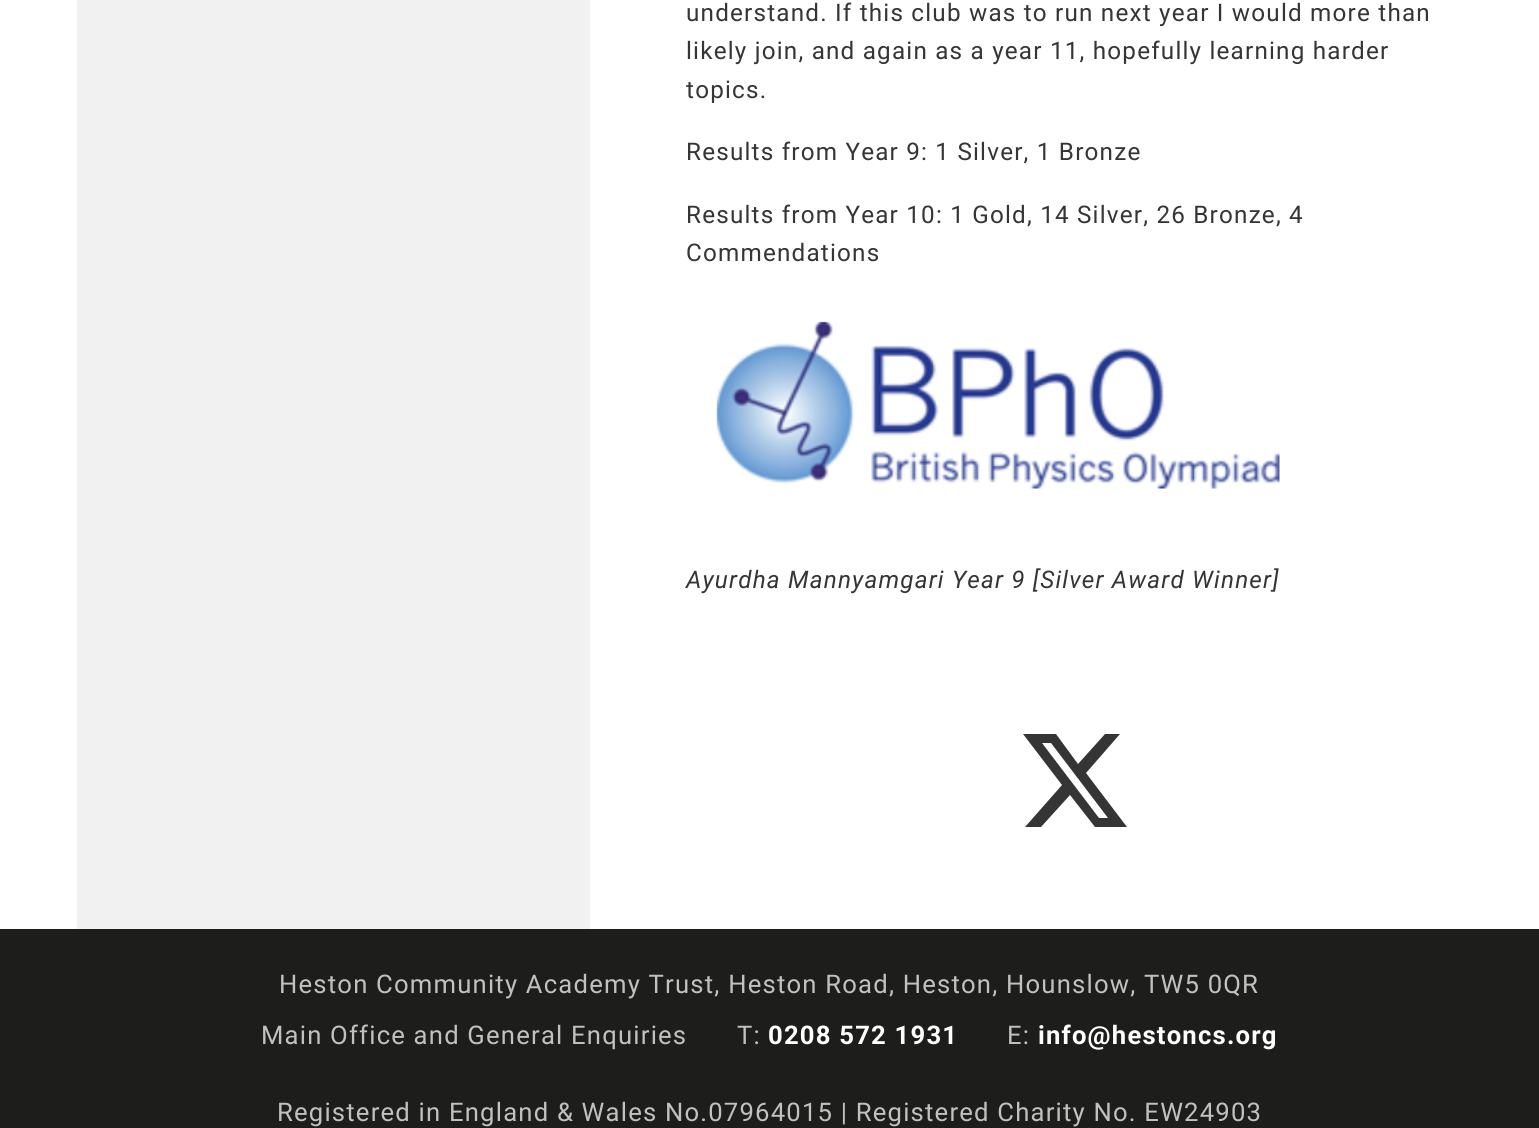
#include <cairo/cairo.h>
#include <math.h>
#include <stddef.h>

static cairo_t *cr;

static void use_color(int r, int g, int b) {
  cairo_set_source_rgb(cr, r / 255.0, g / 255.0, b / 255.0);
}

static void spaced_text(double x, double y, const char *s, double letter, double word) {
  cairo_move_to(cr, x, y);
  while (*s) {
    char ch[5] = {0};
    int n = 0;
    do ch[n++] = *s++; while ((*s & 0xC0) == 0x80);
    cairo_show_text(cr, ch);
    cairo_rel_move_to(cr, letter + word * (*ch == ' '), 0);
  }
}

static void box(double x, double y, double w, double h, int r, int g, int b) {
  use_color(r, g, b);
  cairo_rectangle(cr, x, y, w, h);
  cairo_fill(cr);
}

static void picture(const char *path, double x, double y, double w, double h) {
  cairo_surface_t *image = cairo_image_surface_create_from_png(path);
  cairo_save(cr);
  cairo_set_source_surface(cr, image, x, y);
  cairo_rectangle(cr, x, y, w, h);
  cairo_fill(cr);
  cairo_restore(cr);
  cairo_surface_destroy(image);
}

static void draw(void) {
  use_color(255, 255, 255);
  cairo_paint(cr);
  box(77, 0, 513, 929, 241, 241, 241);
  picture("img_01.png", 716, 321, 564, 168);
  use_color(53, 53, 53);
  cairo_new_path(cr);
  cairo_move_to(cr, 1105, 734);
  cairo_line_to(cr, 1120, 734);
  cairo_line_to(cr, 1086, 773);
  cairo_line_to(cr, 1127, 827);
  cairo_line_to(cr, 1095, 827);
  cairo_line_to(cr, 1070, 795);
  cairo_line_to(cr, 1041, 827);
  cairo_line_to(cr, 1025, 827);
  cairo_line_to(cr, 1062, 785);
  cairo_line_to(cr, 1023, 734);
  cairo_line_to(cr, 1056, 734);
  cairo_line_to(cr, 1078, 764);
  cairo_close_path(cr);
  cairo_move_to(cr, 1099, 818);
  cairo_line_to(cr, 1108, 818);
  cairo_line_to(cr, 1051, 743);
  cairo_line_to(cr, 1042, 743);
  cairo_close_path(cr);
  cairo_fill(cr);
  box(0, 929, 1539, 199, 29, 29, 27);
  cairo_select_font_face(cr, "Roboto", CAIRO_FONT_SLANT_NORMAL, CAIRO_FONT_WEIGHT_NORMAL);
  cairo_set_font_size(cr, 24.25);
  use_color(53, 53, 53);
  spaced_text(686, 21, "understand. If this club was to run next year I would more than", 1.2, 0);
  spaced_text(686, 59, "likely join, and again as a year 11, hopefully learning harder", 1.2, 0);
  spaced_text(686, 98, "topics.", 1.2, 0);
  spaced_text(686, 160, "Results from Year 9: 1 Silver, 1 Bronze", 1.2, 0);
  spaced_text(686, 223, "Results from Year 10: 1 Gold, 14 Silver, 26 Bronze, 4", 1.2, 0);
  spaced_text(686, 261, "Commendations", 1.2, 0);
  cairo_select_font_face(cr, "Roboto", CAIRO_FONT_SLANT_ITALIC, CAIRO_FONT_WEIGHT_NORMAL);
  spaced_text(686, 588, "Ayurdha Mannyamgari Year 9 [Silver Award Winner]", 1.2, 0);
  cairo_select_font_face(cr, "Roboto", CAIRO_FONT_SLANT_NORMAL, CAIRO_FONT_WEIGHT_NORMAL);
  cairo_set_font_size(cr, 25.65);
  use_color(193, 193, 193);
  spaced_text(279, 993, "Heston Community Academy Trust, Heston Road, Heston, Hounslow, TW5 0QR", 1.2, 0);
  spaced_text(261, 1044, "Main Office and General Enquiries", 1.2, 0);
  spaced_text(737, 1044, "T:", 1.2, 0);
  cairo_select_font_face(cr, "Roboto", CAIRO_FONT_SLANT_NORMAL, CAIRO_FONT_WEIGHT_BOLD);
  use_color(255, 255, 255);
  spaced_text(768, 1044, "0208 572 1931", 1.2, 0);
  cairo_select_font_face(cr, "Roboto", CAIRO_FONT_SLANT_NORMAL, CAIRO_FONT_WEIGHT_NORMAL);
  use_color(193, 193, 193);
  spaced_text(1007, 1044, "E:", 1.2, 0);
  cairo_select_font_face(cr, "Roboto", CAIRO_FONT_SLANT_NORMAL, CAIRO_FONT_WEIGHT_BOLD);
  use_color(255, 255, 255);
  spaced_text(1038, 1044, "info@hestoncs.org", 1.2, 0);
  cairo_select_font_face(cr, "Roboto", CAIRO_FONT_SLANT_NORMAL, CAIRO_FONT_WEIGHT_NORMAL);
  use_color(193, 193, 193);
  spaced_text(277, 1121, "Registered in England & Wales No.07964015 | Registered Charity No. EW24903", 1.2, 0);
}

int main(void) {
  cairo_surface_t *surface = cairo_image_surface_create(CAIRO_FORMAT_RGB24, 1539, 1128);
  cr = cairo_create(surface);
  cairo_font_options_t *options = cairo_font_options_create();
  cairo_font_options_set_hint_metrics(options, CAIRO_HINT_METRICS_OFF);
  cairo_font_options_set_hint_style(options, CAIRO_HINT_STYLE_NONE);
  cairo_set_font_options(cr, options);
  cairo_set_miter_limit(cr, 4);
  draw();
  cairo_surface_write_to_png(surface, "out.png");
  cairo_font_options_destroy(options);
  cairo_destroy(cr);
  cairo_surface_destroy(surface);
  return 0;
}
